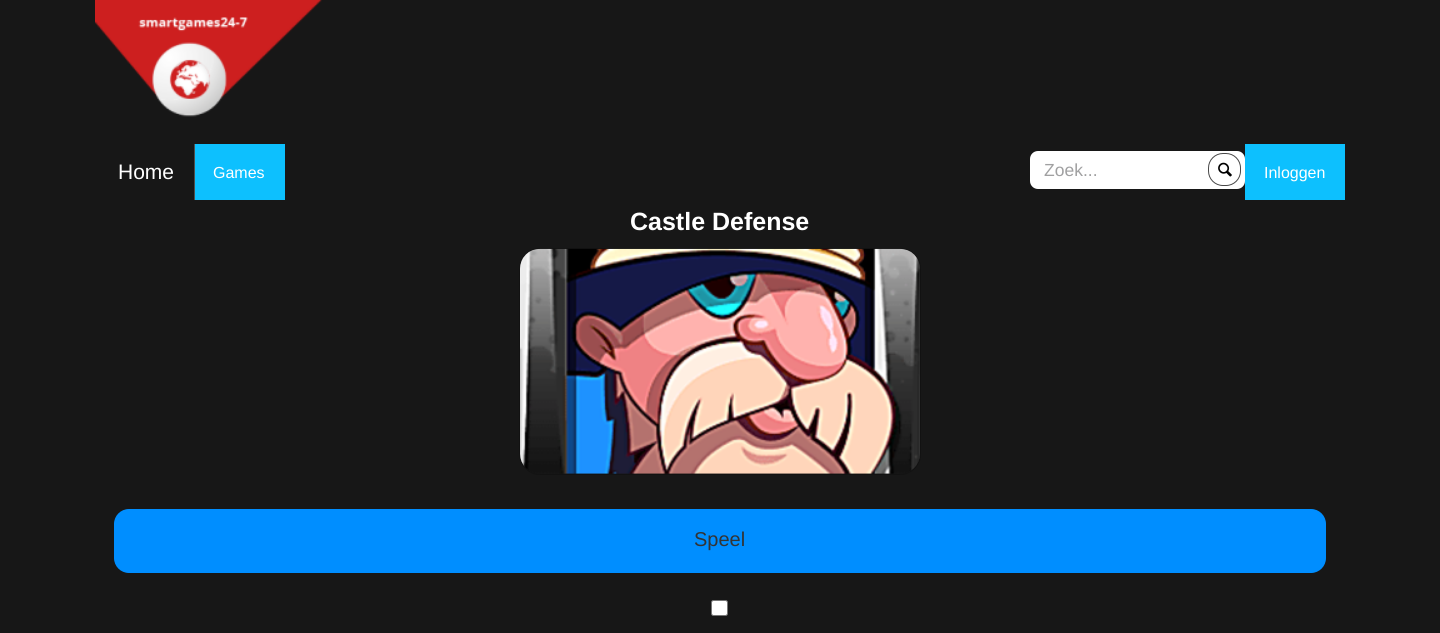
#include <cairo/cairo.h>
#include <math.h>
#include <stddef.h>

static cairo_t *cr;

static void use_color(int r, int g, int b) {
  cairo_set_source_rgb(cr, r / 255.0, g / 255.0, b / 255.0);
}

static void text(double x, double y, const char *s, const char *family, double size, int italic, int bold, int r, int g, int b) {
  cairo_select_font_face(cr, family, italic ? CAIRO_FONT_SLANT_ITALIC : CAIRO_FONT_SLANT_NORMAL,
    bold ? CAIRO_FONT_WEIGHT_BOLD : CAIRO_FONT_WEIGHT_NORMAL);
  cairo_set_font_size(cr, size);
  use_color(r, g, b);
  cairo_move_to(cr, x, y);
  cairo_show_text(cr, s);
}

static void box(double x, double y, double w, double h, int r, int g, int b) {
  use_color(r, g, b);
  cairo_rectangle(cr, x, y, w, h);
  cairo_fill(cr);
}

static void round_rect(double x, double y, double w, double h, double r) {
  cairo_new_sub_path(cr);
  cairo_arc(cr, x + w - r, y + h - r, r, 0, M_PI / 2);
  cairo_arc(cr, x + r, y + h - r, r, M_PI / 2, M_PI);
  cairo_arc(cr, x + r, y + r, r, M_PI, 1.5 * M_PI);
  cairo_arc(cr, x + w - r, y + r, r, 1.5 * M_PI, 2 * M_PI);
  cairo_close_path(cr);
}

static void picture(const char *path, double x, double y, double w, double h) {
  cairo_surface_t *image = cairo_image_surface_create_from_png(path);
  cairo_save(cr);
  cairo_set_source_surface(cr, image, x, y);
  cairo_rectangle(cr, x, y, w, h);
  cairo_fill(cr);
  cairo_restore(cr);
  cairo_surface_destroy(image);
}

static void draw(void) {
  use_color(23, 23, 23);
  cairo_paint(cr);
  picture("img_01.png", 95, 0, 227, 117);
  box(194, 144, 1, 56, 78, 78, 78);
  box(195, 144, 90, 56, 13, 192, 254);
  use_color(255, 255, 255);
  round_rect(1030, 151, 215, 38, 8);
  cairo_fill(cr);
  round_rect(1208.5, 153.5, 32, 32, 14.5);
  use_color(73, 73, 73);
  cairo_set_line_width(cr, 1);
  cairo_stroke(cr);
  picture("img_02.png", 1218, 162, 14, 15);
  box(1245, 144, 100, 56, 13, 192, 254);
  round_rect(519.5, 248.5, 401, 226, 20.5);
  use_color(18, 18, 18);
  cairo_stroke(cr);
  picture("img_03.png", 520, 248, 400, 226);
  use_color(0, 142, 255);
  round_rect(114, 509, 1212, 64, 15);
  cairo_fill(cr);
  use_color(255, 255, 255);
  round_rect(711.5, 600.5, 16, 15, 2);
  cairo_fill_preserve(cr);
  use_color(118, 118, 118);
  cairo_stroke(cr);
  text(118, 179, "Home", "Liberation Sans", 21, 0, 0, 255, 255, 255);
  text(213, 178, "Games", "Liberation Sans", 16, 0, 0, 255, 255, 255);
  text(1044, 176, "Zoek...", "Liberation Sans", 17.5, 0, 0, 160, 160, 161);
  text(1264, 178, "Inloggen", "Liberation Sans", 16, 0, 0, 255, 255, 255);
  text(630, 230, "Castle Defense", "Liberation Sans", 25, 0, 1, 255, 255, 255);
  text(694, 546, "Speel", "Liberation Sans", 20, 0, 0, 51, 51, 51);
}

int main(void) {
  cairo_surface_t *surface = cairo_image_surface_create(CAIRO_FORMAT_RGB24, 1440, 633);
  cr = cairo_create(surface);
  cairo_font_options_t *options = cairo_font_options_create();
  cairo_font_options_set_hint_metrics(options, CAIRO_HINT_METRICS_OFF);
  cairo_font_options_set_hint_style(options, CAIRO_HINT_STYLE_NONE);
  cairo_set_font_options(cr, options);
  cairo_set_miter_limit(cr, 4);
  draw();
  cairo_surface_write_to_png(surface, "out.png");
  cairo_font_options_destroy(options);
  cairo_destroy(cr);
  cairo_surface_destroy(surface);
  return 0;
}
